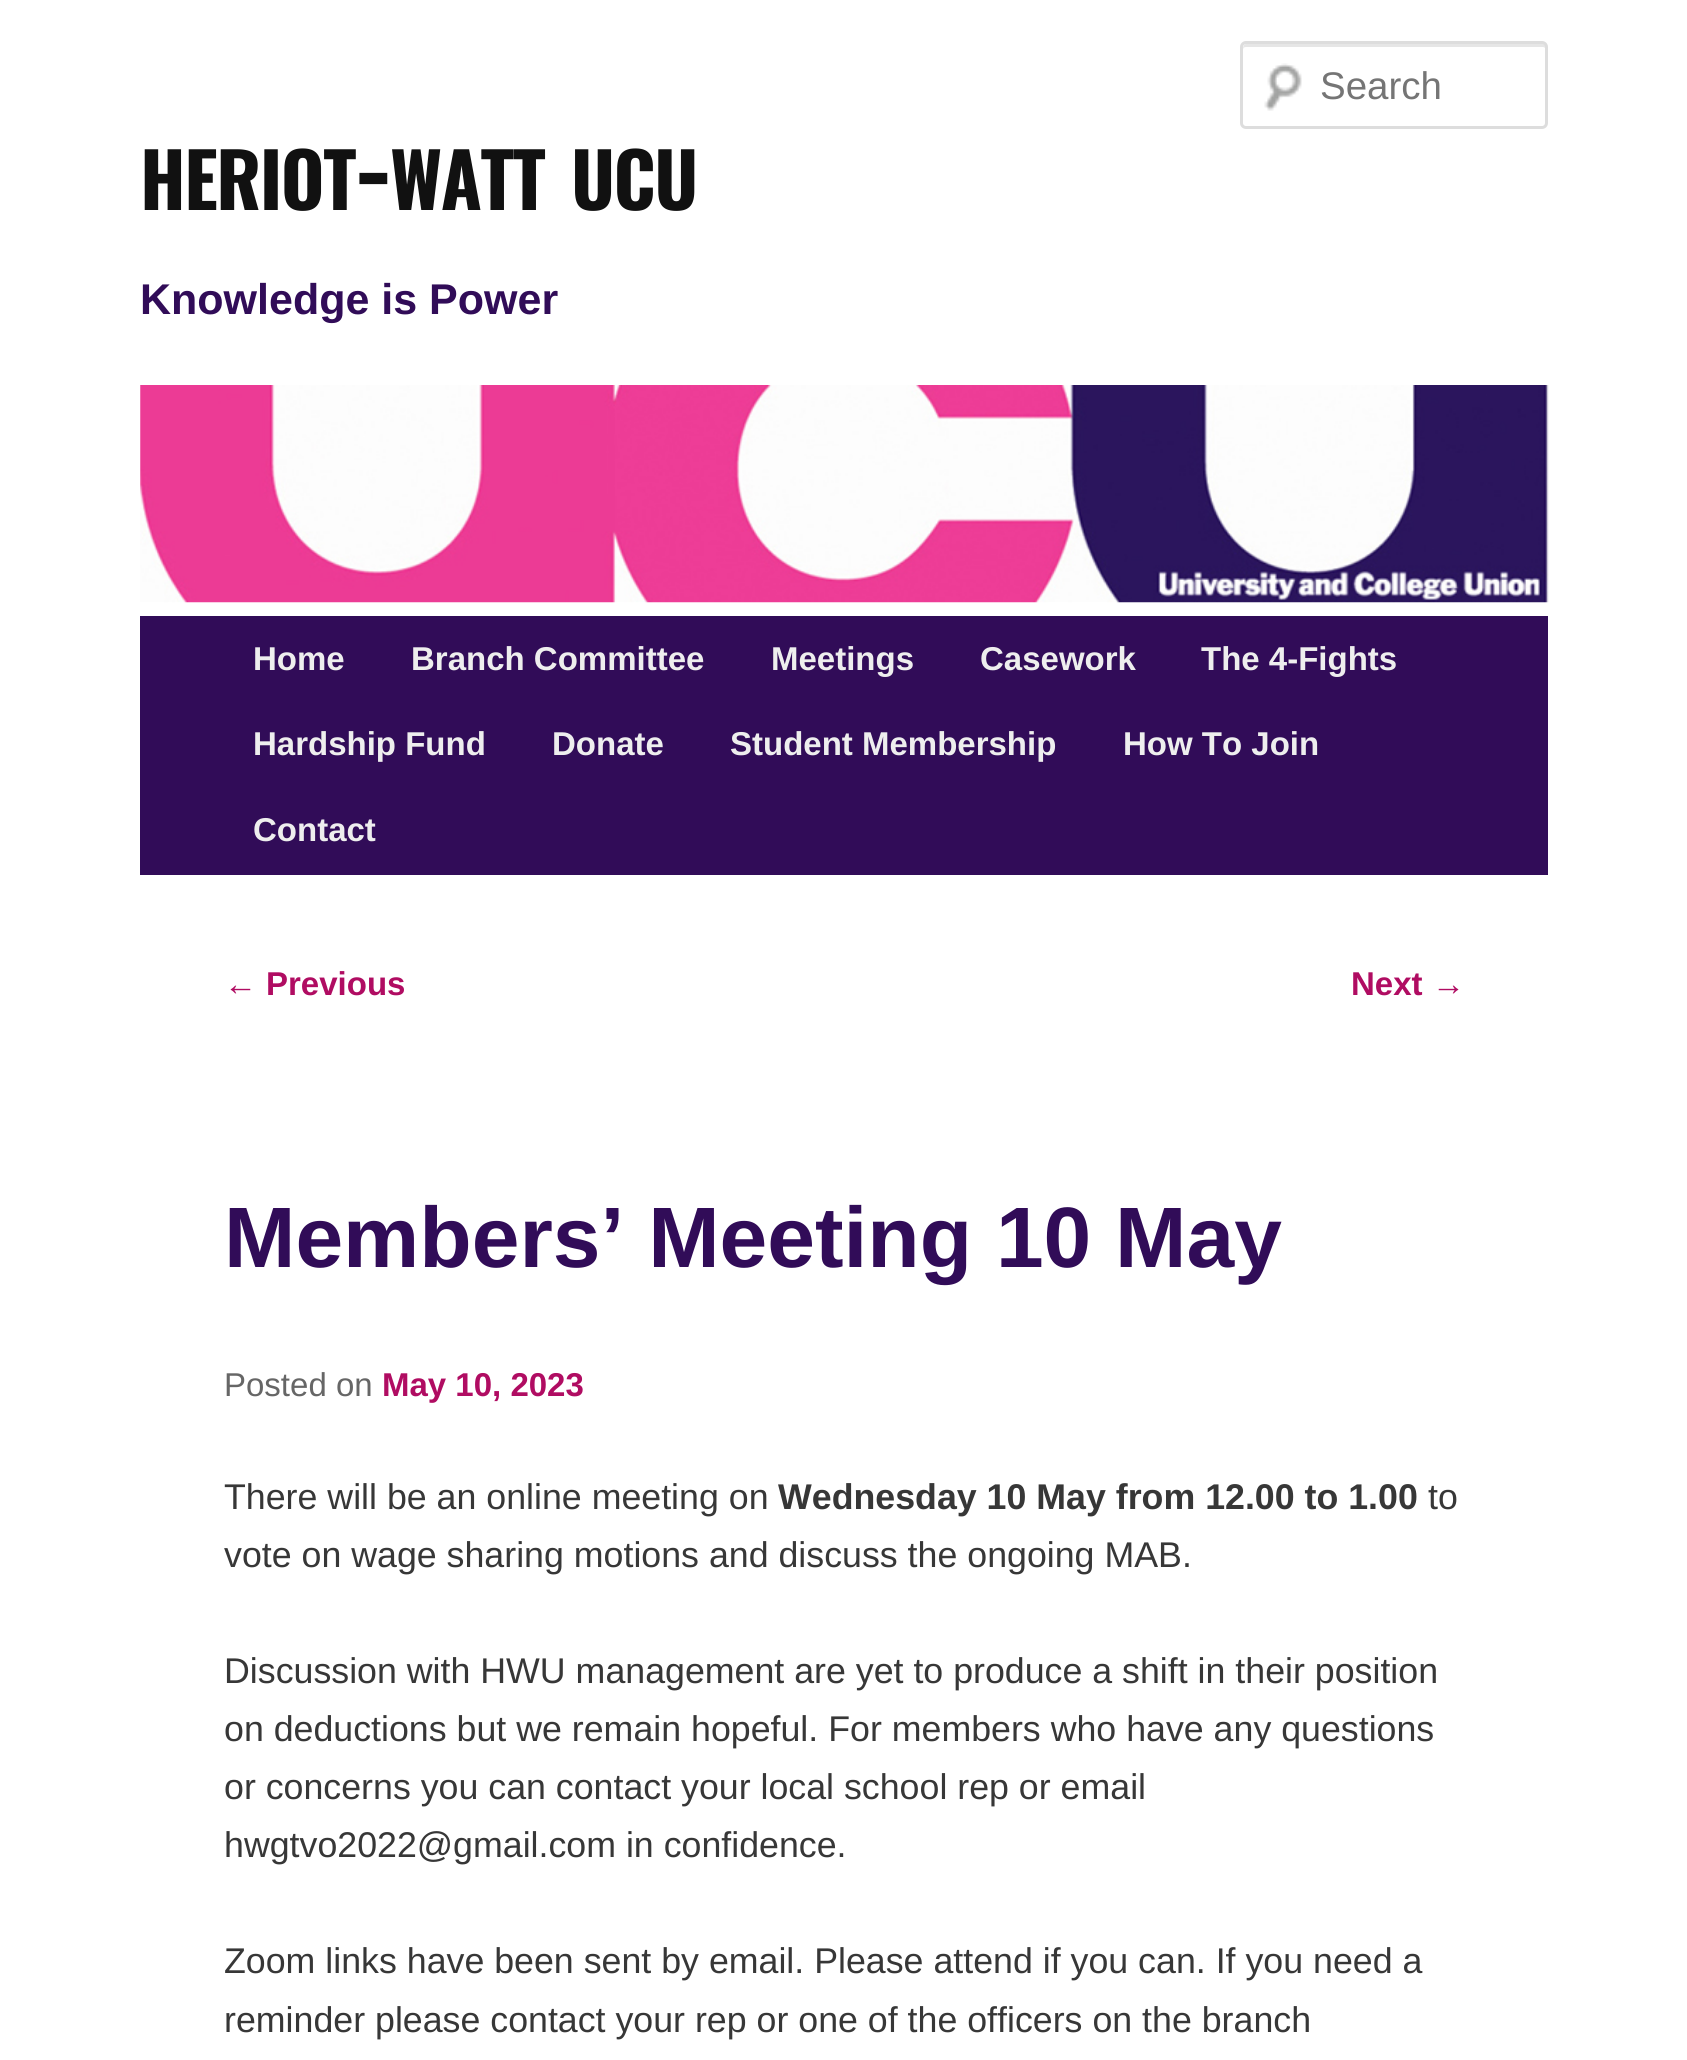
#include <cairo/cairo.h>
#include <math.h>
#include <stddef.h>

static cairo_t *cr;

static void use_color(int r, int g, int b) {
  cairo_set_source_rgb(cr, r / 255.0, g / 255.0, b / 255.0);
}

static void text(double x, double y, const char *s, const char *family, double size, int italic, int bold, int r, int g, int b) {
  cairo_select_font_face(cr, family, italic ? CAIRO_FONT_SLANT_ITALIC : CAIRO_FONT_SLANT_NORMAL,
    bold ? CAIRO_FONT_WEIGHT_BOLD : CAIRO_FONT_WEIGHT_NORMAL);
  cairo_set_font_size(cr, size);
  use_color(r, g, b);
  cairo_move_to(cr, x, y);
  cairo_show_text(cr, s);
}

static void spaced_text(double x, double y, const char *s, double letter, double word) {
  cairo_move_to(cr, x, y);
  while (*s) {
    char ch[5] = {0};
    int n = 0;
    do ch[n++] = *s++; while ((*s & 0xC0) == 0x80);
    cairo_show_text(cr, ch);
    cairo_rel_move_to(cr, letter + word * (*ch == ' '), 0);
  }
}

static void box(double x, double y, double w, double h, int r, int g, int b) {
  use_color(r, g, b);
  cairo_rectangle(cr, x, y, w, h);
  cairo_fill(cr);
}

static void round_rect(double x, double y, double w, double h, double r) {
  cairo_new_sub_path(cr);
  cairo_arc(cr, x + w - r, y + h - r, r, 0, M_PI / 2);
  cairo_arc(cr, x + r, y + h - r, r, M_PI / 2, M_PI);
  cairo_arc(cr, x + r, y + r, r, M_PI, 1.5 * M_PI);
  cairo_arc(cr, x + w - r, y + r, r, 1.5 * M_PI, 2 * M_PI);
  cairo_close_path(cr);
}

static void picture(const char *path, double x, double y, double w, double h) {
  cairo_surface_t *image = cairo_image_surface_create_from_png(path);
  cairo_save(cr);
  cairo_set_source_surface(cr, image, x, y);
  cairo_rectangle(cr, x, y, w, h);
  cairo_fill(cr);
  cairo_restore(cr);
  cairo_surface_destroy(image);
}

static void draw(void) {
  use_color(255, 255, 255);
  cairo_paint(cr);
  picture("img_01.png", 1264, 63, 38, 48);
  use_color(230, 230, 230);
  cairo_new_path(cr);
  cairo_move_to(cr, 1246, 47);
  cairo_line_to(cr, 1543, 47);
  cairo_curve_to(cr, 1544, 47, 1546, 48, 1546, 50);
  cairo_curve_to(cr, 1546, 48, 1546, 44, 1543, 44);
  cairo_line_to(cr, 1246, 44);
  cairo_curve_to(cr, 1243, 44, 1243, 48, 1243, 50);
  cairo_curve_to(cr, 1243, 48, 1244, 47, 1246, 47);
  cairo_close_path(cr);
  cairo_fill(cr);
  round_rect(1241.5, 42.5, 305, 85, 4.5);
  use_color(221, 221, 221);
  cairo_set_line_width(cr, 3);
  cairo_stroke(cr);
  picture("img_02.png", 140, 385, 1409, 218);
  box(140, 616, 1408, 259, 49, 12, 88);
  text(1320, 99, "Search", "Liberation Sans", 38.5, 0, 0, 117, 117, 117);
  cairo_select_font_face(cr, "Oswald", CAIRO_FONT_SLANT_NORMAL, CAIRO_FONT_WEIGHT_BOLD);
  cairo_set_font_size(cr, 75);
  use_color(17, 17, 17);
  spaced_text(140, 210, "HERIOT", -1.5, 0);
  cairo_set_font_size(cr, 107);
  spaced_text(356, 210, "-", -1.5, 0);
  cairo_set_font_size(cr, 75);
  spaced_text(390, 210, "WATT", -1.5, 0);
  spaced_text(571, 210, "UCU", -1.5, 0);
  text(140, 314, "Knowledge is Power", "Liberation Sans", 43, 0, 1, 49, 12, 88);
  text(253, 670, "Home", "Liberation Sans", 33, 0, 1, 238, 238, 238);
  text(411, 670, "Branch Committee", "Liberation Sans", 33, 0, 1, 238, 238, 238);
  text(771, 670, "Meetings", "Liberation Sans", 33, 0, 1, 238, 238, 238);
  text(980, 670, "Casework", "Liberation Sans", 33, 0, 1, 238, 238, 238);
  text(1201, 670, "The 4-Fights", "Liberation Sans", 33, 0, 1, 238, 238, 238);
  text(253, 755, "Hardship Fund", "Liberation Sans", 33, 0, 1, 238, 238, 238);
  text(552, 755, "Donate", "Liberation Sans", 33, 0, 1, 238, 238, 238);
  text(730, 755, "Student Membership", "Liberation Sans", 33, 0, 1, 238, 238, 238);
  text(1123, 755, "How To Join", "Liberation Sans", 33, 0, 1, 238, 238, 238);
  text(253, 841, "Contact", "Liberation Sans", 33, 0, 1, 238, 238, 238);
  text(224, 995, "←", "Liberation Sans", 33, 0, 0, 176, 12, 98);
  text(266, 995, "Previous", "Liberation Sans", 33, 0, 1, 176, 12, 98);
  text(1351, 995, "Next", "Liberation Sans", 33, 0, 1, 176, 12, 98);
  text(1432, 995, "→", "Liberation Sans", 33, 0, 0, 176, 12, 98);
  text(224, 1267, "Members’ Meeting 10 May", "Liberation Sans", 85.75, 0, 1, 49, 12, 88);
  text(224, 1396, "Posted on", "Liberation Sans", 33, 0, 0, 102, 102, 102);
  text(382, 1396, "May 10, 2023", "Liberation Sans", 33, 0, 1, 176, 12, 98);
  text(224, 1509, "There will be an online meeting on", "Liberation Sans", 35.75, 0, 0, 55, 55, 55);
  text(778, 1509, "Wednesday 10 May from 12.00 to 1.00", "Liberation Sans", 35.75, 0, 1, 55, 55, 55);
  text(1428, 1509, "to", "Liberation Sans", 35.75, 0, 0, 55, 55, 55);
  text(224, 1567, "vote on wage sharing motions and discuss the ongoing MAB.", "Liberation Sans", 35.75, 0, 0, 55, 55, 55);
  text(224, 1683, "Discussion with HWU management are yet to produce a shift in their position", "Liberation Sans", 35.75, 0, 0, 55, 55, 55);
  text(224, 1741, "on deductions but we remain hopeful. For members who have any questions", "Liberation Sans", 35.75, 0, 0, 55, 55, 55);
  text(224, 1799, "or concerns you can contact your local school rep or email", "Liberation Sans", 35.75, 0, 0, 55, 55, 55);
  text(224, 1857, "hwgtvo2022@gmail.com in confidence.", "Liberation Sans", 35.75, 0, 0, 55, 55, 55);
  text(224, 1973, "Zoom links have been sent by email. Please attend if you can. If you need a", "Liberation Sans", 35.75, 0, 0, 55, 55, 55);
  text(224, 2032, "reminder please contact your rep or one of the officers on the branch", "Liberation Sans", 35.75, 0, 0, 55, 55, 55);
}

int main(void) {
  cairo_surface_t *surface = cairo_image_surface_create(CAIRO_FORMAT_RGB24, 1687, 2060);
  cr = cairo_create(surface);
  cairo_font_options_t *options = cairo_font_options_create();
  cairo_font_options_set_hint_metrics(options, CAIRO_HINT_METRICS_OFF);
  cairo_font_options_set_hint_style(options, CAIRO_HINT_STYLE_NONE);
  cairo_set_font_options(cr, options);
  cairo_set_miter_limit(cr, 4);
  draw();
  cairo_surface_write_to_png(surface, "out.png");
  cairo_font_options_destroy(options);
  cairo_destroy(cr);
  cairo_surface_destroy(surface);
  return 0;
}
